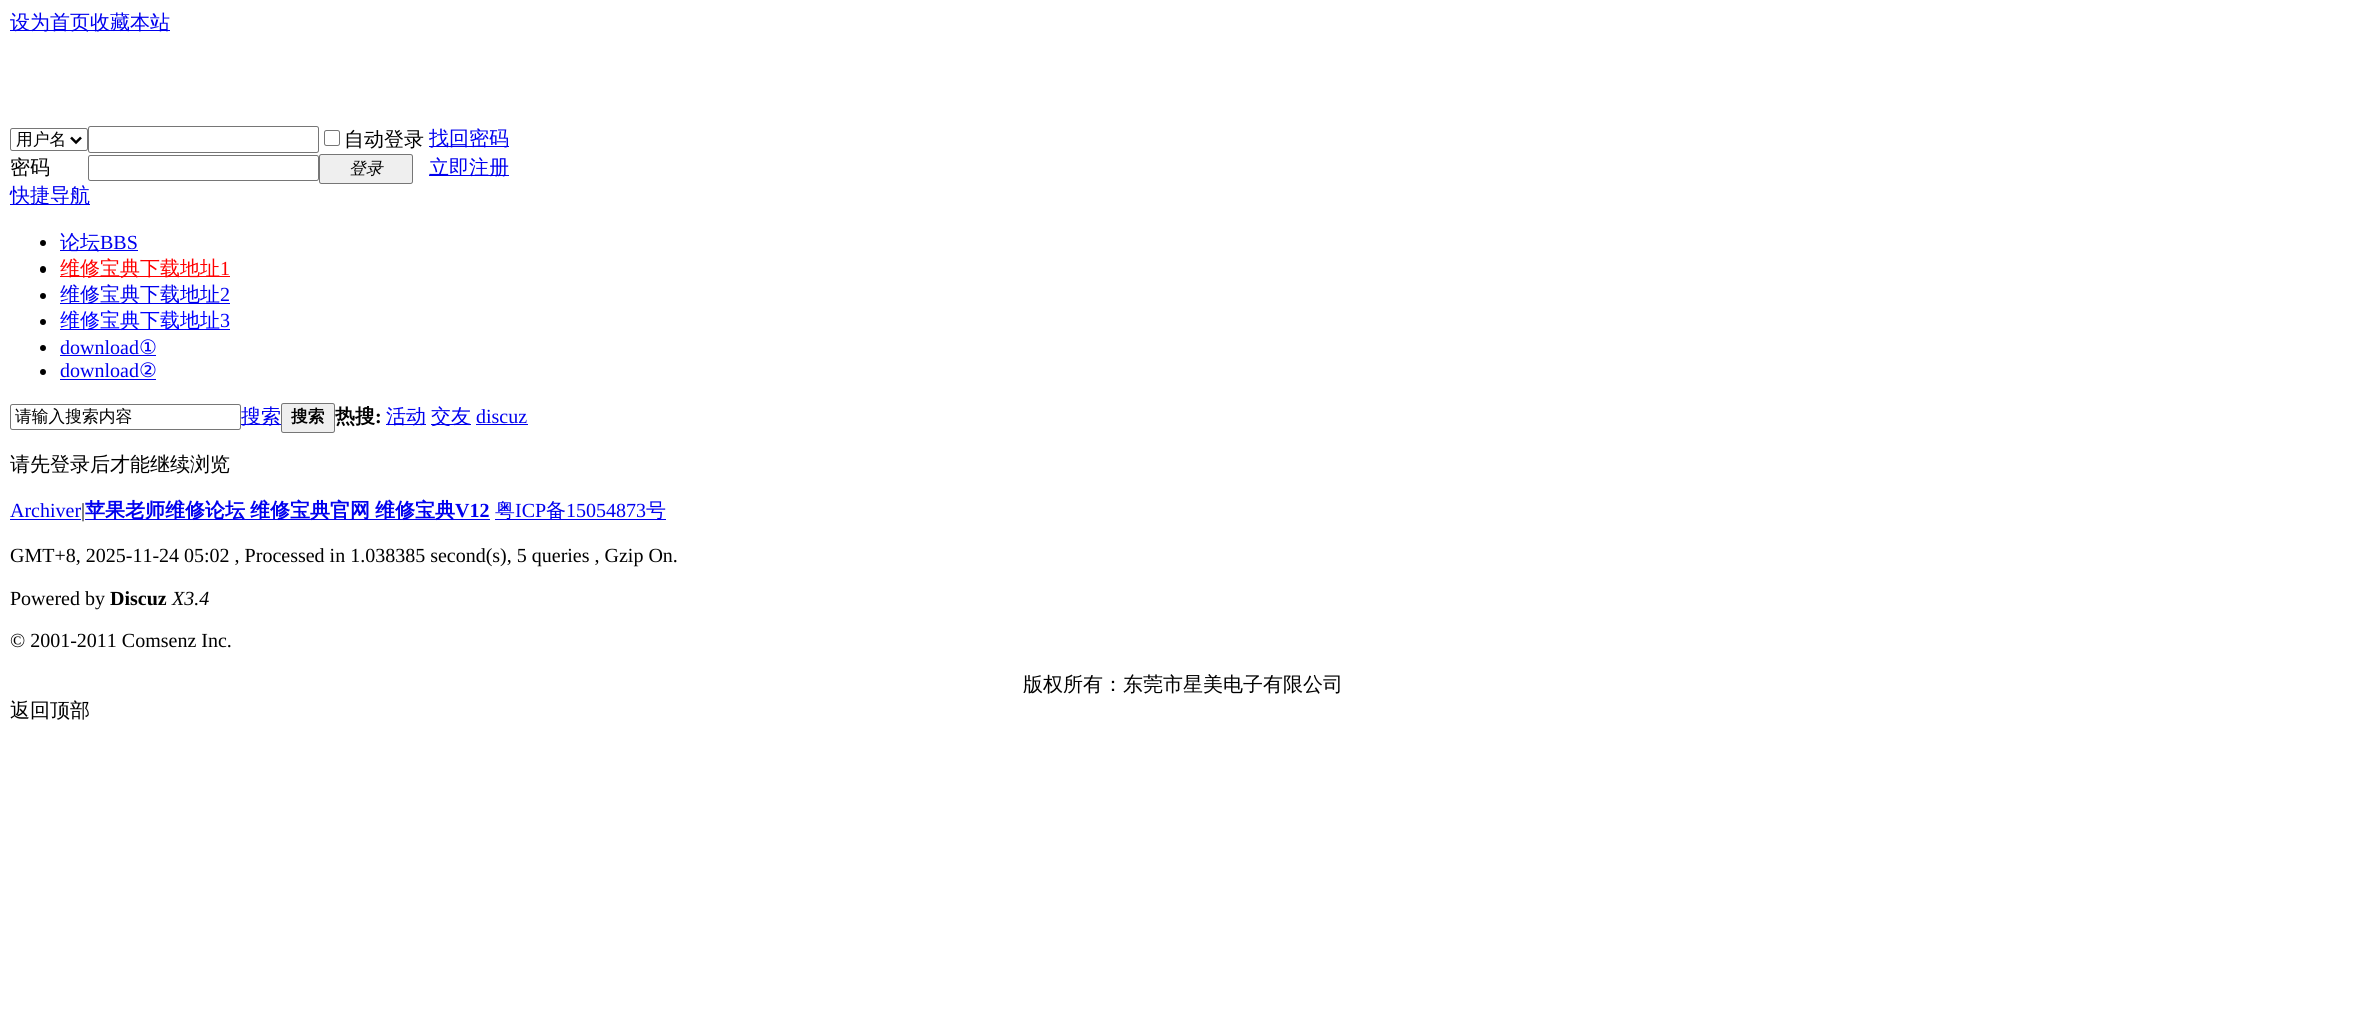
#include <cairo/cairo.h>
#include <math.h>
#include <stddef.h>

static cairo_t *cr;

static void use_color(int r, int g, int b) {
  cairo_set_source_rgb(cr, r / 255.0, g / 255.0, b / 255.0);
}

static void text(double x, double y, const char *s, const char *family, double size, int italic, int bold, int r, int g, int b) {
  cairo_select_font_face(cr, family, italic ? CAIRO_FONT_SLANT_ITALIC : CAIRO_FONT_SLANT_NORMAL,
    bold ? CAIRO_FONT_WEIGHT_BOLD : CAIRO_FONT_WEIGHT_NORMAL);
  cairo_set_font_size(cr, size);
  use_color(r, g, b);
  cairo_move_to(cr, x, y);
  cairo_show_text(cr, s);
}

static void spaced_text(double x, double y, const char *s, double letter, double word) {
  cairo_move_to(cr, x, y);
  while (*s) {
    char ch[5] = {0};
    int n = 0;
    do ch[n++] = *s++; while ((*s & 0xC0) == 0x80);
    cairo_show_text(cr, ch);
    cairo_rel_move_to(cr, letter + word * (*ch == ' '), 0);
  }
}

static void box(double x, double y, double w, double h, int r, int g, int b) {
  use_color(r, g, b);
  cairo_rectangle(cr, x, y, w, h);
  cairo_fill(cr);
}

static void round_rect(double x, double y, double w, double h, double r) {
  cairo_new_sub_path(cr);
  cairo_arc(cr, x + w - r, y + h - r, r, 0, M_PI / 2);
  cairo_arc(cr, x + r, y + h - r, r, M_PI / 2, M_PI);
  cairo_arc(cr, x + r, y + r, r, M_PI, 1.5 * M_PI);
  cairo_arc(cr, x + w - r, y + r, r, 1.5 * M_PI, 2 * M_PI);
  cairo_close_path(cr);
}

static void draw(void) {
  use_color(255, 255, 255);
  cairo_paint(cr);
  box(10, 30, 160, 1, 0, 0, 238);
  round_rect(10.5, 128.5, 77, 22, 2);
  use_color(118, 118, 118);
  cairo_set_line_width(cr, 1);
  cairo_stroke(cr);
  cairo_new_path(cr);
  cairo_move_to(cr, 71, 137.5);
  cairo_line_to(cr, 76, 142.5);
  cairo_line_to(cr, 81, 137.5);
  use_color(0, 0, 0);
  cairo_set_line_width(cr, 2.5);
  cairo_stroke(cr);
  round_rect(88.5, 126.5, 230, 26, 2);
  use_color(118, 118, 118);
  cairo_set_line_width(cr, 1);
  cairo_stroke(cr);
  round_rect(324.5, 130.5, 15, 15, 2);
  cairo_stroke(cr);
  box(429, 146, 80, 1, 0, 0, 238);
  round_rect(88.5, 155.5, 230, 25, 2);
  use_color(118, 118, 118);
  cairo_stroke(cr);
  use_color(239, 239, 239);
  round_rect(319.5, 154.5, 93, 29, 2);
  cairo_fill_preserve(cr);
  use_color(118, 118, 118);
  cairo_stroke(cr);
  box(429, 175, 80, 1, 0, 0, 238);
  box(10, 204, 80, 1, 0, 0, 238);
  use_color(0, 0, 0);
  cairo_arc(cr, 43, 243, 3, 0, 2 * M_PI);
  cairo_fill(cr);
  box(60, 250, 78, 1, 0, 0, 238);
  use_color(0, 0, 0);
  round_rect(40, 266, 6, 7, 3);
  cairo_fill(cr);
  box(60, 276, 170, 1, 255, 0, 0);
  use_color(0, 0, 0);
  cairo_arc(cr, 43, 296, 3, 0, 2 * M_PI);
  cairo_fill(cr);
  box(60, 303, 170, 1, 0, 0, 238);
  use_color(0, 0, 0);
  cairo_arc(cr, 43, 322, 3, 0, 2 * M_PI);
  cairo_fill(cr);
  box(60, 329, 170, 1, 0, 0, 255);
  use_color(0, 0, 0);
  cairo_arc(cr, 43, 348, 3, 0, 2 * M_PI);
  cairo_fill(cr);
  box(60, 355, 96, 1, 0, 0, 238);
  use_color(0, 0, 0);
  cairo_arc(cr, 43, 372, 3, 0, 2 * M_PI);
  cairo_fill(cr);
  box(60, 379, 96, 1, 0, 0, 238);
  round_rect(10.5, 404.5, 230, 25, 2);
  use_color(118, 118, 118);
  cairo_stroke(cr);
  box(241, 424, 40, 1, 0, 0, 238);
  use_color(239, 239, 239);
  round_rect(281.5, 403.5, 53, 29, 2);
  cairo_fill_preserve(cr);
  use_color(118, 118, 118);
  cairo_stroke(cr);
  box(386, 424, 40, 1, 0, 0, 238);
  box(431, 424, 40, 1, 0, 0, 238);
  box(476, 424, 52, 1, 0, 0, 238);
  box(10, 519, 71, 1, 0, 0, 238);
  box(85, 519, 405, 1, 0, 0, 238);
  box(495, 519, 171, 1, 0, 0, 238);
  text(10, 29, "设为首页收藏本站", "WenQuanYi Zen Hei Medium", 20, 0, 0, 0, 0, 238);
  text(16, 145, "用户名", "WenQuanYi Zen Hei Medium", 16.75, 0, 0, 0, 0, 0);
  text(344, 146, "自动登录", "WenQuanYi Zen Hei Medium", 20, 0, 0, 0, 0, 0);
  text(429, 145, "找回密码", "WenQuanYi Zen Hei Medium", 20, 0, 0, 0, 0, 238);
  text(10, 174, "密码", "WenQuanYi Zen Hei Medium", 20, 0, 0, 0, 0, 0);
  text(349, 174, "登录", "WenQuanYi Zen Hei Medium", 16.75, 1, 0, 0, 0, 0);
  text(429, 174, "立即注册", "WenQuanYi Zen Hei Medium", 20, 0, 0, 0, 0, 238);
  text(10, 202, "快捷导航", "WenQuanYi Zen Hei Medium", 20, 0, 0, 0, 0, 238);
  text(60, 249, "论坛", "WenQuanYi Zen Hei Medium", 20, 0, 0, 0, 0, 238);
  text(100, 249, "BBS", "Liberation Serif", 20, 0, 0, 0, 0, 238);
  text(60, 275, "维修宝典下载地址", "WenQuanYi Zen Hei Medium", 20, 0, 0, 255, 0, 0);
  text(220, 275, "1", "Liberation Serif", 20, 0, 0, 255, 0, 0);
  text(60, 301, "维修宝典下载地址", "WenQuanYi Zen Hei Medium", 20, 0, 0, 0, 0, 238);
  text(220, 301, "2", "Liberation Serif", 20, 0, 0, 0, 0, 238);
  text(60, 327, "维修宝典下载地址", "WenQuanYi Zen Hei Medium", 20, 0, 0, 0, 0, 255);
  text(220, 327, "3", "Liberation Serif", 20, 0, 0, 0, 0, 255);
  text(60, 354, "download", "Liberation Serif", 20, 0, 0, 0, 0, 238);
  text(139, 354, "①", "DejaVu Sans", 20, 0, 0, 0, 0, 238);
  text(60, 377, "download", "Liberation Serif", 20, 0, 0, 0, 0, 238);
  text(139, 377, "②", "DejaVu Sans", 20, 0, 0, 0, 0, 238);
  text(15, 422, "请输入搜索内容", "WenQuanYi Zen Hei Medium", 16.75, 0, 0, 0, 0, 0);
  text(241, 423, "搜索", "WenQuanYi Zen Hei Medium", 20, 0, 0, 0, 0, 238);
  text(291, 422, "搜索", "WenQuanYi Zen Hei", 16.75, 0, 1, 0, 0, 0);
  text(335, 423, "热搜", "WenQuanYi Zen Hei", 20, 0, 1, 0, 0, 0);
  text(375, 423, ":", "Liberation Serif", 20, 0, 1, 0, 0, 0);
  text(386, 423, "活动", "WenQuanYi Zen Hei Medium", 20, 0, 0, 0, 0, 238);
  text(431, 423, "交友", "WenQuanYi Zen Hei Medium", 20, 0, 0, 0, 0, 238);
  text(476, 423, "discuz", "Liberation Serif", 20, 0, 0, 0, 0, 238);
  text(10, 471, "请先登录后才能继续浏览", "WenQuanYi Zen Hei Medium", 20, 0, 0, 0, 0, 0);
  text(10, 517, "Archiver", "Liberation Serif", 20, 0, 0, 0, 0, 238);
  text(81, 517, "|", "Liberation Serif", 20, 0, 0, 0, 0, 0);
  cairo_select_font_face(cr, "WenQuanYi Zen Hei", CAIRO_FONT_SLANT_NORMAL, CAIRO_FONT_WEIGHT_BOLD);
  use_color(0, 0, 238);
  spaced_text(85, 517, "苹果老师维修论坛 维修宝典官网 维修宝典", 0, -1);
  text(455, 517, "V12", "Liberation Serif", 20, 0, 1, 0, 0, 238);
  text(495, 517, "粤", "WenQuanYi Zen Hei Medium", 20, 0, 0, 0, 0, 238);
  text(515, 517, "ICP", "Liberation Serif", 20, 0, 0, 0, 0, 238);
  text(546, 517, "备", "WenQuanYi Zen Hei Medium", 20, 0, 0, 0, 0, 238);
  text(566, 517, "15054873", "Liberation Serif", 20, 0, 0, 0, 0, 238);
  text(646, 517, "号", "WenQuanYi Zen Hei Medium", 20, 0, 0, 0, 0, 238);
  text(10, 562, "GMT+8, 2025-11-24 05:02 , Processed in 1.038385 second(s), 5 queries , Gzip On.", "Liberation Serif", 20, 0, 0, 0, 0, 0);
  text(10, 605, "Powered by", "Liberation Serif", 20, 0, 0, 0, 0, 0);
  text(110, 605, "Discuz", "Liberation Serif", 20, 0, 1, 0, 0, 0);
  text(172, 605, "X3.4", "Liberation Serif", 20, 1, 0, 0, 0, 0);
  text(10, 647, "© 2001-2011 Comsenz Inc.", "Liberation Serif", 20, 0, 0, 0, 0, 0);
  text(1023, 691, "版权所有：东莞市星美电子有限公司", "WenQuanYi Zen Hei Medium", 20, 0, 0, 0, 0, 0);
  text(10, 717, "返回顶部", "WenQuanYi Zen Hei Medium", 20, 0, 0, 0, 0, 0);
}

int main(void) {
  cairo_surface_t *surface = cairo_image_surface_create(CAIRO_FORMAT_RGB24, 2364, 1009);
  cr = cairo_create(surface);
  cairo_font_options_t *options = cairo_font_options_create();
  cairo_font_options_set_hint_metrics(options, CAIRO_HINT_METRICS_OFF);
  cairo_font_options_set_hint_style(options, CAIRO_HINT_STYLE_NONE);
  cairo_set_font_options(cr, options);
  cairo_set_miter_limit(cr, 4);
  draw();
  cairo_surface_write_to_png(surface, "out.png");
  cairo_font_options_destroy(options);
  cairo_destroy(cr);
  cairo_surface_destroy(surface);
  return 0;
}
